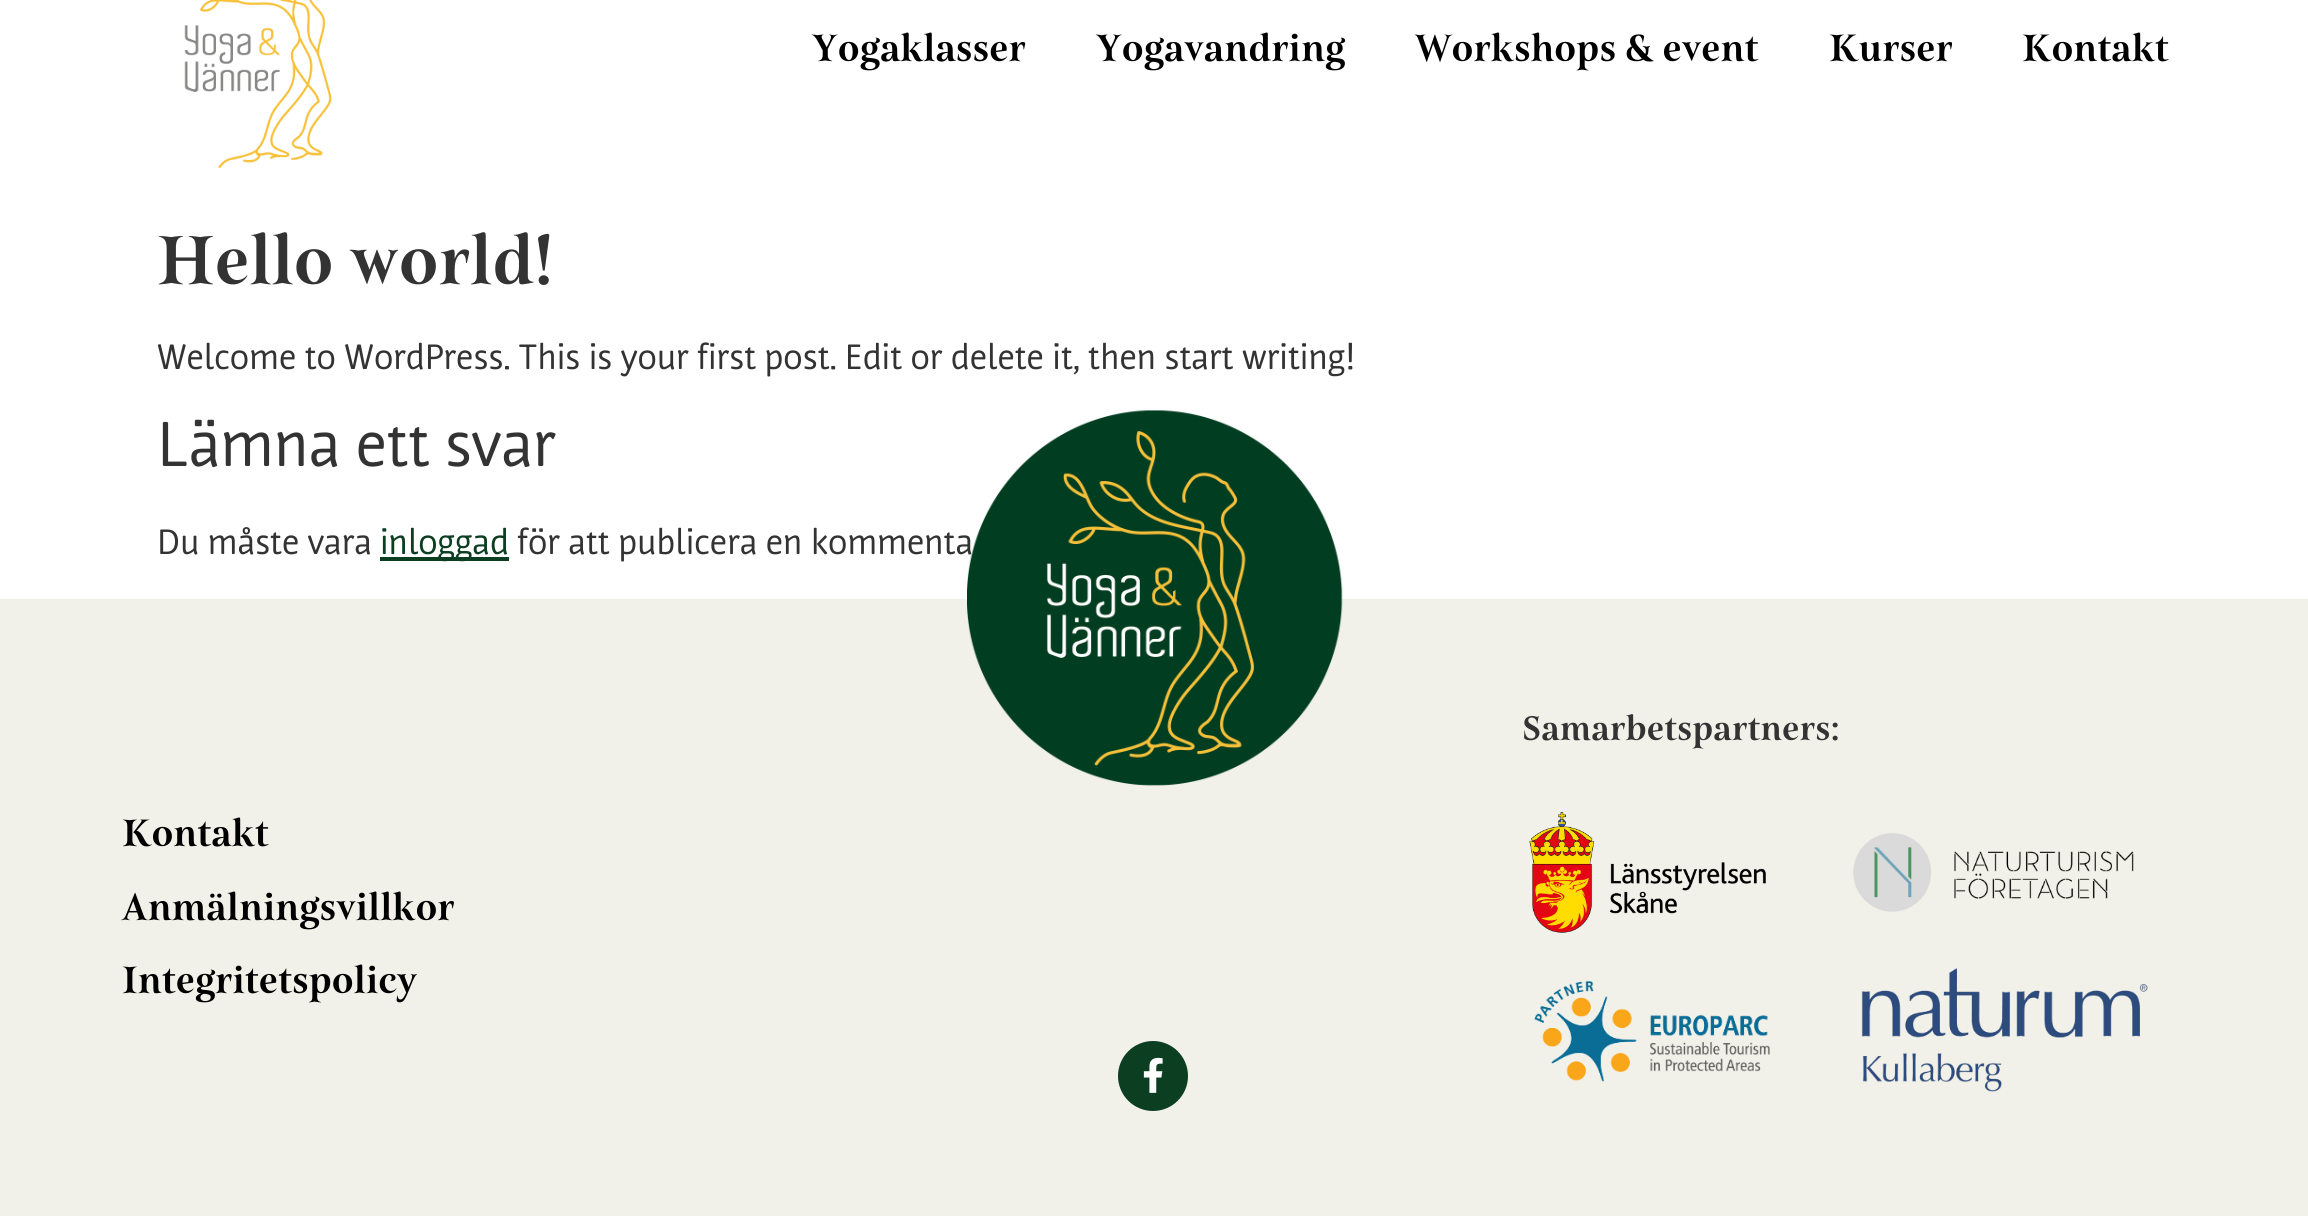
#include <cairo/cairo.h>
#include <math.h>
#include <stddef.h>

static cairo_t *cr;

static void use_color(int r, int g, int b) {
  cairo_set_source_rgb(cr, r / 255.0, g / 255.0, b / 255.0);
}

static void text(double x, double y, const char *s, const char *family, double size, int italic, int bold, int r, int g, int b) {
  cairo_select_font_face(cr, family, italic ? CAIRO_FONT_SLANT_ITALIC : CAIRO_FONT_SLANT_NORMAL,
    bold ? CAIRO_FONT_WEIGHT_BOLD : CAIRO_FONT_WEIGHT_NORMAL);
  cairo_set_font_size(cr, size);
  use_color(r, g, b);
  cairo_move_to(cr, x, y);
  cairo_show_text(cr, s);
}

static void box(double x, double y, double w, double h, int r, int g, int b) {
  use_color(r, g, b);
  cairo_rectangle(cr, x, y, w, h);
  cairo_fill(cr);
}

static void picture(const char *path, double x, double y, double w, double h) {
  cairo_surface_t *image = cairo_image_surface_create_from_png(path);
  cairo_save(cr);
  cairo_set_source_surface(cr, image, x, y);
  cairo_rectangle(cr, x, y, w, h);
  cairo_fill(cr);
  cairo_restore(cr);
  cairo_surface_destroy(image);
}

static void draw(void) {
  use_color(255, 255, 255);
  cairo_paint(cr);
  picture("img_01.png", 184, 0, 148, 169);
  box(380, 557, 129, 4, 12, 62, 33);
  box(0, 599, 2308, 617, 242, 241, 233);
  picture("img_03.png", 1529, 812, 237, 121);
  picture("img_04.png", 1853, 833, 281, 79);
  picture("img_05.png", 1534, 981, 236, 101);
  picture("img_06.png", 1861, 968, 287, 124);
  use_color(12, 62, 33);
  cairo_arc(cr, 1153, 1076, 35, 0, 2 * M_PI);
  cairo_fill(cr);
  picture("img_07.png", 1143, 1057, 20, 36);
  text(812, 61, "Yogaklasser", "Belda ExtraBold", 38.5, 0, 0, 0, 0, 0);
  text(1096, 61, "Yogavandring", "Belda ExtraBold", 38.5, 0, 0, 0, 0, 0);
  text(1415, 61, "Workshops & event", "Belda ExtraBold", 38.5, 0, 0, 0, 0, 0);
  text(1829, 61, "Kurser", "Belda ExtraBold", 38.5, 0, 0, 0, 0, 0);
  text(2022, 61, "Kontakt", "Belda ExtraBold", 38.5, 0, 0, 0, 0, 0);
  text(157, 284, "Hello world!", "Belda ExtraBold", 70, 0, 0, 51, 51, 51);
  text(157, 369, "Welcome to WordPress. This is your first post. Edit or delete it, then start writing!", "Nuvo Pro", 35, 0, 0, 51, 51, 51);
  text(157, 466, "Lämna ett svar", "Nuvo Pro", 63, 0, 0, 51, 51, 51);
  text(157, 554, "Du måste vara", "Nuvo Pro", 35, 0, 0, 51, 51, 51);
  text(380, 554, "inloggad", "Nuvo Pro", 35, 0, 0, 12, 62, 33);
  text(517, 554, "för att publicera en kommenta", "Nuvo Pro", 35, 0, 0, 51, 51, 51);
  picture("img_02.png", 967, 410, 376, 376);
  text(1522, 740, "Samarbetspartners:", "Belda ExtraBold", 35, 0, 0, 51, 51, 51);
  text(122, 846, "Kontakt", "Belda ExtraBold", 38.5, 0, 0, 0, 0, 0);
  text(122, 920, "Anmälningsvillkor", "Belda ExtraBold", 38.5, 0, 0, 0, 0, 0);
  text(122, 993, "Integritetspolicy", "Belda ExtraBold", 38.5, 0, 0, 0, 0, 0);
}

int main(void) {
  cairo_surface_t *surface = cairo_image_surface_create(CAIRO_FORMAT_RGB24, 2308, 1216);
  cr = cairo_create(surface);
  cairo_font_options_t *options = cairo_font_options_create();
  cairo_font_options_set_hint_metrics(options, CAIRO_HINT_METRICS_OFF);
  cairo_font_options_set_hint_style(options, CAIRO_HINT_STYLE_NONE);
  cairo_set_font_options(cr, options);
  cairo_set_miter_limit(cr, 4);
  draw();
  cairo_surface_write_to_png(surface, "out.png");
  cairo_font_options_destroy(options);
  cairo_destroy(cr);
  cairo_surface_destroy(surface);
  return 0;
}
